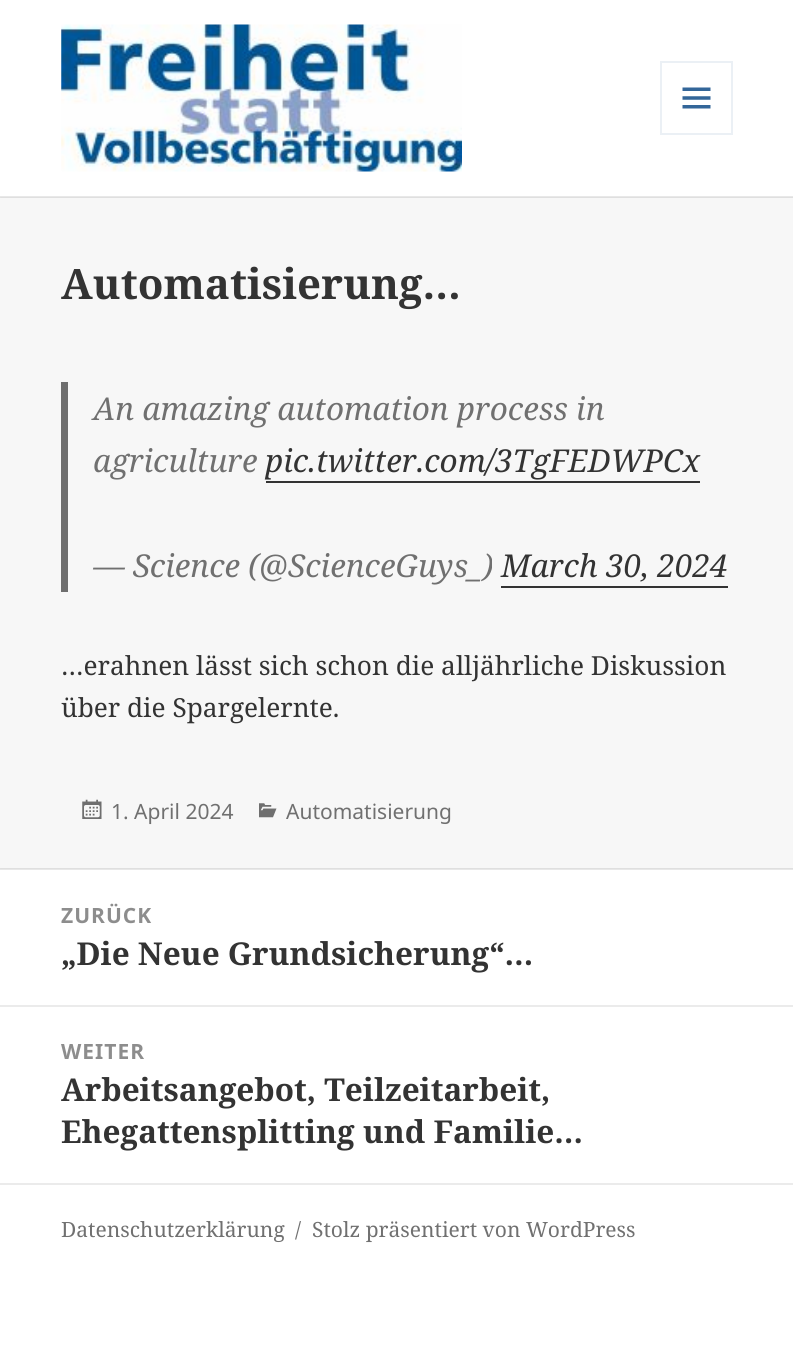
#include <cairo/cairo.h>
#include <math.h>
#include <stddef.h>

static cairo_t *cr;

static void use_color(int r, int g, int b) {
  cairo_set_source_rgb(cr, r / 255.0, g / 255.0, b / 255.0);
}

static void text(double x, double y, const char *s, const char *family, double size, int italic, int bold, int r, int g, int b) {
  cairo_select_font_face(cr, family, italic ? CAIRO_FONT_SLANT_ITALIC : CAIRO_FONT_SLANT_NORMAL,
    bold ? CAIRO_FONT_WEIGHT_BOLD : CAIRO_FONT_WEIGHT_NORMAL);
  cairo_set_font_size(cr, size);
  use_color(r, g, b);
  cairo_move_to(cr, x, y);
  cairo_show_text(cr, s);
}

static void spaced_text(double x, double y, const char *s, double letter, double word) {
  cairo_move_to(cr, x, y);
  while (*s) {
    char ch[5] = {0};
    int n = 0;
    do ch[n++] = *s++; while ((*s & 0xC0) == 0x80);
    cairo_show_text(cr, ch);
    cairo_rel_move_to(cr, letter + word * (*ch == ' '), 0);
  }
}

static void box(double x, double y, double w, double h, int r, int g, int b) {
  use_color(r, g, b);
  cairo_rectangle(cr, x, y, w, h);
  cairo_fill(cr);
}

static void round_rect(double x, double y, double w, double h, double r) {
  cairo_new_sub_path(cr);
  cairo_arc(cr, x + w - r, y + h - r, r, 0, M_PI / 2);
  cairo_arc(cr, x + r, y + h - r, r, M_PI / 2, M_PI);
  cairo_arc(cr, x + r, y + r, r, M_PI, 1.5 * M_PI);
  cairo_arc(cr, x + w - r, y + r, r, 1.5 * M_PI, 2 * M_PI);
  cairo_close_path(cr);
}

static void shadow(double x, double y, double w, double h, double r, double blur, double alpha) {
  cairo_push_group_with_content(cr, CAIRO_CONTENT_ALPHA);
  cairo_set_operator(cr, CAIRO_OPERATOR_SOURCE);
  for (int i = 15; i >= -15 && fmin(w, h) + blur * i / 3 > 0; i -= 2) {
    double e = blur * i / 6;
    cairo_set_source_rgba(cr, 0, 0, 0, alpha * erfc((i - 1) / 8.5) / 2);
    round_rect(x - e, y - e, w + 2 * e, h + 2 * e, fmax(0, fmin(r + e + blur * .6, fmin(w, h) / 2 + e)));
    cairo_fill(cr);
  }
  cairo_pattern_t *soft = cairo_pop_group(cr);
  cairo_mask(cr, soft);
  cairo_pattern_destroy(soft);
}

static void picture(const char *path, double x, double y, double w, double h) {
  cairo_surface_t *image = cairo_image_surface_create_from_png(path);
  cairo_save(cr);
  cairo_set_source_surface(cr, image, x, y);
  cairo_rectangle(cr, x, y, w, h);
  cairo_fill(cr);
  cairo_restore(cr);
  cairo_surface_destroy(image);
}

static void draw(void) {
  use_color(255, 255, 255);
  cairo_paint(cr);
  box(0, 196, 793, 2, 235, 235, 235);
  picture("img_01.png", 61, 24, 401, 148);
  cairo_rectangle(cr, 661, 62, 71, 72);
  use_color(235, 240, 245);
  cairo_stroke(cr);
  picture("img_02.png", 682, 87, 29, 22);
  box(0, 868, 793, 2, 235, 235, 235);
  use_color(0, 0, 0);
  shadow(0, 198, 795, 670, 0, 1, 0.15);
  box(0, 198, 793, 670, 247, 247, 247);
  box(61, 382, 7, 210, 110, 110, 110);
  box(266, 481, 434, 2, 51, 51, 51);
  box(501, 586, 227, 2, 51, 51, 51);
  picture("img_03.png", 82, 799, 20, 20);
  picture("img_04.png", 259, 803, 18, 15);
  box(0, 1005, 793, 2, 235, 235, 235);
  box(0, 1183, 793, 2, 235, 235, 235);
  text(61, 299, "Automatisierung…", "Noto Serif", 42, 0, 1, 51, 51, 51);
  text(93, 420, "An amazing automation process in", "Noto Serif", 31.5, 1, 0, 112, 112, 112);
  text(93, 472, "agriculture", "Noto Serif", 31.5, 1, 0, 112, 112, 112);
  text(265, 472, "pic.twitter.com/3TgFEDWPCx", "Noto Serif", 31.5, 1, 0, 51, 51, 51);
  text(93, 577, "— Science (@ScienceGuys_)", "Noto Serif", 31.5, 1, 0, 112, 112, 112);
  text(501, 577, "March 30, 2024", "Noto Serif", 31.5, 1, 0, 51, 51, 51);
  text(61, 675, "…erahnen lässt sich schon die alljährliche Diskussion", "Noto Serif", 26.25, 0, 0, 51, 51, 51);
  text(61, 717, "über die Spargelernte.", "Noto Serif", 26.25, 0, 0, 51, 51, 51);
  text(111, 819, "1. April 2024", "Noto Sans", 21, 0, 0, 112, 112, 112);
  text(286, 819, "Automatisierung", "Noto Sans", 21, 0, 0, 112, 112, 112);
  cairo_select_font_face(cr, "Noto Sans", CAIRO_FONT_SLANT_NORMAL, CAIRO_FONT_WEIGHT_BOLD);
  use_color(141, 141, 141);
  spaced_text(61, 923, "ZURÜCK", 1, 0);
  text(61, 965, "„Die Neue Grundsicherung“…", "Noto Serif", 31.5, 0, 1, 51, 51, 51);
  cairo_select_font_face(cr, "Noto Sans", CAIRO_FONT_SLANT_NORMAL, CAIRO_FONT_WEIGHT_BOLD);
  cairo_set_font_size(cr, 21);
  use_color(141, 141, 141);
  spaced_text(61, 1059, "WEITER", 1, 0);
  text(61, 1101, "Arbeitsangebot, Teilzeitarbeit,", "Noto Serif", 31.5, 0, 1, 51, 51, 51);
  text(61, 1143, "Ehegattensplitting und Familie…", "Noto Serif", 31.5, 0, 1, 51, 51, 51);
  text(61, 1237, "Datenschutzerklärung", "Noto Serif", 21, 0, 0, 112, 112, 112);
  text(295, 1237, "/", "Noto Serif", 21, 0, 0, 112, 112, 112);
  text(312, 1237, "Stolz präsentiert von WordPress", "Noto Serif", 21, 0, 0, 112, 112, 112);
}

int main(void) {
  cairo_surface_t *surface = cairo_image_surface_create(CAIRO_FORMAT_RGB24, 793, 1357);
  cr = cairo_create(surface);
  cairo_font_options_t *options = cairo_font_options_create();
  cairo_font_options_set_hint_metrics(options, CAIRO_HINT_METRICS_OFF);
  cairo_font_options_set_hint_style(options, CAIRO_HINT_STYLE_NONE);
  cairo_set_font_options(cr, options);
  cairo_set_miter_limit(cr, 4);
  draw();
  cairo_surface_write_to_png(surface, "out.png");
  cairo_font_options_destroy(options);
  cairo_destroy(cr);
  cairo_surface_destroy(surface);
  return 0;
}
